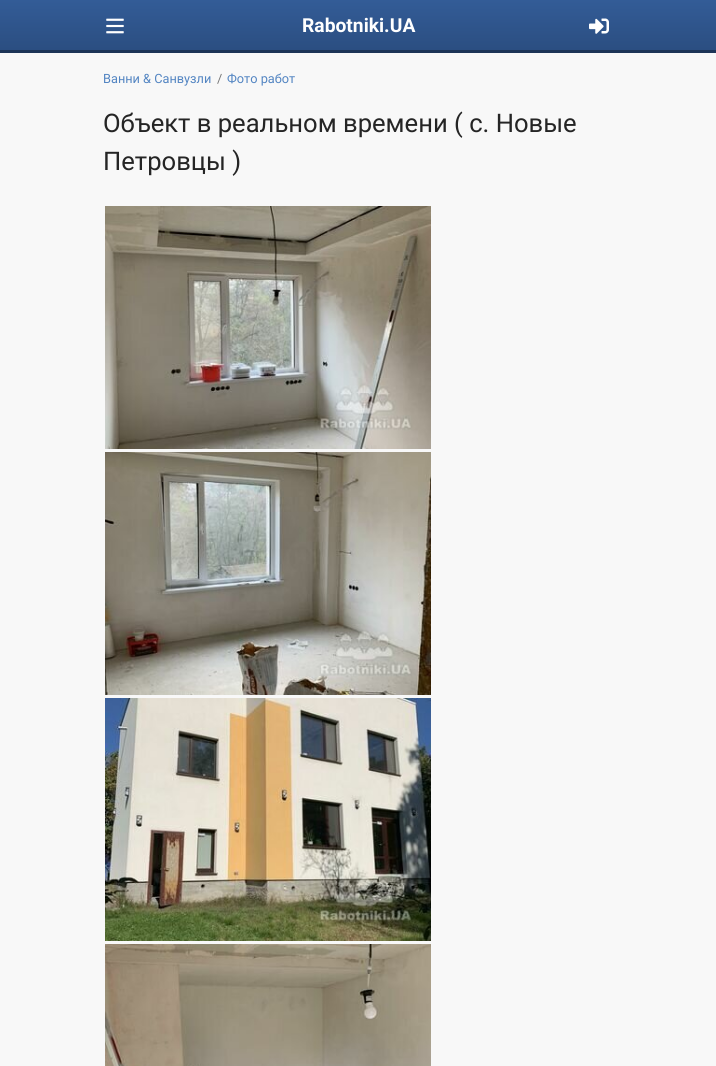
#include <cairo/cairo.h>
#include <math.h>
#include <stddef.h>

static cairo_t *cr;

static void use_color(int r, int g, int b) {
  cairo_set_source_rgb(cr, r / 255.0, g / 255.0, b / 255.0);
}

static void text(double x, double y, const char *s, const char *family, double size, int italic, int bold, int r, int g, int b) {
  cairo_select_font_face(cr, family, italic ? CAIRO_FONT_SLANT_ITALIC : CAIRO_FONT_SLANT_NORMAL,
    bold ? CAIRO_FONT_WEIGHT_BOLD : CAIRO_FONT_WEIGHT_NORMAL);
  cairo_set_font_size(cr, size);
  use_color(r, g, b);
  cairo_move_to(cr, x, y);
  cairo_show_text(cr, s);
}

static void box(double x, double y, double w, double h, int r, int g, int b) {
  use_color(r, g, b);
  cairo_rectangle(cr, x, y, w, h);
  cairo_fill(cr);
}

static void picture(const char *path, double x, double y, double w, double h) {
  cairo_surface_t *image = cairo_image_surface_create_from_png(path);
  cairo_save(cr);
  cairo_set_source_surface(cr, image, x, y);
  cairo_rectangle(cr, x, y, w, h);
  cairo_fill(cr);
  cairo_restore(cr);
  cairo_surface_destroy(image);
}

static void draw(void) {
  cairo_pattern_t *gradient;
  use_color(248, 248, 248);
  cairo_paint(cr);
  gradient = cairo_pattern_create_linear(358, 0, 358, 50);
  cairo_pattern_add_color_stop_rgba(gradient, 0, 0.2, 0.361, 0.592, 1);
  cairo_pattern_add_color_stop_rgba(gradient, 1, 0.169, 0.306, 0.506, 1);
  cairo_set_source(cr, gradient);
  cairo_pattern_destroy(gradient);
  cairo_rectangle(cr, 0, 0, 716, 50);
  cairo_fill(cr);
  box(0, 50, 716, 3, 29, 53, 87);
  picture("img_01.png", 106, 18, 18, 16);
  picture("img_02.png", 589, 18, 20, 16);
  picture("img_03.png", 105, 206, 326, 243);
  picture("img_04.png", 105, 452, 326, 243);
  picture("img_05.png", 105, 698, 326, 243);
  picture("img_06.png", 105, 944, 326, 122);
  text(302, 32, "Rabotniki.UA", "Roboto", 19.25, 0, 1, 255, 255, 255);
  text(103, 83, "Ванни & Санвузли", "Roboto", 12.75, 0, 0, 83, 133, 194);
  text(217, 83, "/", "Roboto", 12.75, 0, 0, 117, 117, 117);
  text(227, 83, "Фото работ", "Roboto", 12.75, 0, 0, 83, 133, 194);
  text(103, 132, "Объект в реальном времени ( с. Новые", "Roboto", 25.6, 0, 0, 37, 37, 37);
  text(103, 170, "Петровцы )", "Roboto", 25.6, 0, 0, 37, 37, 37);
}

int main(void) {
  cairo_surface_t *surface = cairo_image_surface_create(CAIRO_FORMAT_RGB24, 716, 1066);
  cr = cairo_create(surface);
  cairo_font_options_t *options = cairo_font_options_create();
  cairo_font_options_set_hint_metrics(options, CAIRO_HINT_METRICS_OFF);
  cairo_font_options_set_hint_style(options, CAIRO_HINT_STYLE_NONE);
  cairo_set_font_options(cr, options);
  cairo_set_miter_limit(cr, 4);
  draw();
  cairo_surface_write_to_png(surface, "out.png");
  cairo_font_options_destroy(options);
  cairo_destroy(cr);
  cairo_surface_destroy(surface);
  return 0;
}
